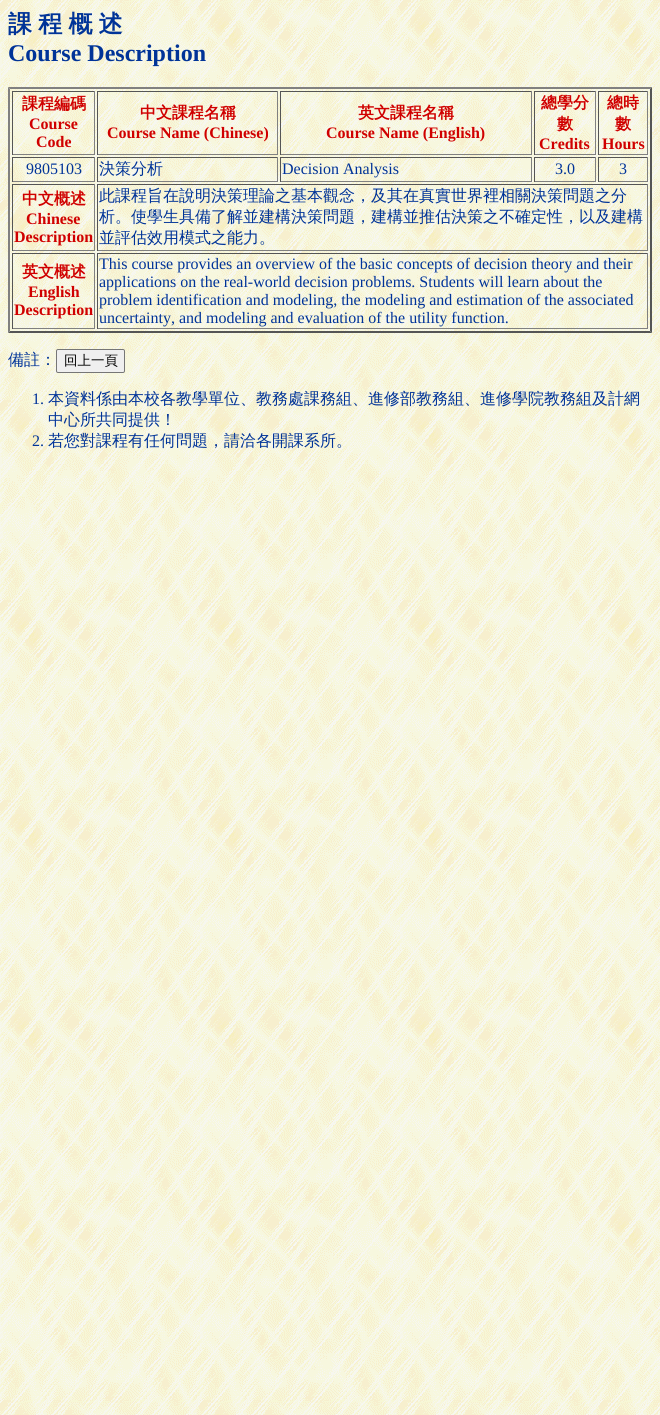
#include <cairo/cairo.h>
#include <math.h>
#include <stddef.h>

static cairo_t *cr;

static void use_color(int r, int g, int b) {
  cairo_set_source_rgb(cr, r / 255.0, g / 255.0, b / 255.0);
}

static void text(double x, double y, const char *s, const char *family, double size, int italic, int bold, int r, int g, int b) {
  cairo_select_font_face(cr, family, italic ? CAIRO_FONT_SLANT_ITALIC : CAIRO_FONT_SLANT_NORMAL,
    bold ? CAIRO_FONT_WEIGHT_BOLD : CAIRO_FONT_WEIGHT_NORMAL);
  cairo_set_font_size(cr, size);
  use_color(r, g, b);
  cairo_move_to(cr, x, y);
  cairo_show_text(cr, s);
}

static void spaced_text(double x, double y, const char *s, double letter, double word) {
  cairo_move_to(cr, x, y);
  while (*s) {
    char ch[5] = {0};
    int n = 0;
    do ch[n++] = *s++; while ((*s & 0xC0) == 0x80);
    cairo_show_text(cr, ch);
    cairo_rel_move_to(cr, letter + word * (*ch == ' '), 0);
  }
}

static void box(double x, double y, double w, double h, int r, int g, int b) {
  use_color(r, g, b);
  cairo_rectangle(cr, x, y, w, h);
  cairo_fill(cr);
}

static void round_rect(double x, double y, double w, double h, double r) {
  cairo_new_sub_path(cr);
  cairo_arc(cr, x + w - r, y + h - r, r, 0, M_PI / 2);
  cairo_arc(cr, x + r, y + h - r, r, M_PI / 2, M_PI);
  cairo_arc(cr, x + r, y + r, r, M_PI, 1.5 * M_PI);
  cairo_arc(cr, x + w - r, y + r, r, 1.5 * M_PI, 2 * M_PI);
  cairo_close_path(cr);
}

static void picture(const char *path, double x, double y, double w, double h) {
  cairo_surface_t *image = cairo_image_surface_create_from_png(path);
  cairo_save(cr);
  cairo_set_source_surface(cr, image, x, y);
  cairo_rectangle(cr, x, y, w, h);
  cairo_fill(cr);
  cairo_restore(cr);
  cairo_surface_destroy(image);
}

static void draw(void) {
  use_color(255, 255, 255);
  cairo_paint(cr);
  picture("img_01.png", 0, 0, 660, 1415);
  use_color(128, 128, 128);
  cairo_new_path(cr);
  cairo_move_to(cr, 8, 87);
  cairo_line_to(cr, 652, 87);
  cairo_line_to(cr, 650, 89);
  cairo_line_to(cr, 10, 89);
  cairo_close_path(cr);
  cairo_fill(cr);
  use_color(85, 85, 85);
  cairo_new_path(cr);
  cairo_move_to(cr, 652, 87);
  cairo_line_to(cr, 652, 333);
  cairo_line_to(cr, 650, 331);
  cairo_line_to(cr, 650, 89);
  cairo_close_path(cr);
  cairo_fill(cr);
  cairo_new_path(cr);
  cairo_move_to(cr, 652, 333);
  cairo_line_to(cr, 8, 333);
  cairo_line_to(cr, 10, 331);
  cairo_line_to(cr, 650, 331);
  cairo_close_path(cr);
  cairo_fill(cr);
  use_color(128, 128, 128);
  cairo_new_path(cr);
  cairo_move_to(cr, 8, 333);
  cairo_line_to(cr, 8, 87);
  cairo_line_to(cr, 10, 89);
  cairo_line_to(cr, 10, 331);
  cairo_close_path(cr);
  cairo_fill(cr);
  box(12, 91, 83, 1, 85, 85, 85);
  box(94, 91, 1, 64, 128, 128, 128);
  box(12, 154, 83, 1, 128, 128, 128);
  box(12, 91, 1, 64, 85, 85, 85);
  box(97, 91, 181, 1, 85, 85, 85);
  box(277, 91, 1, 64, 128, 128, 128);
  box(97, 154, 181, 1, 128, 128, 128);
  box(97, 91, 1, 64, 85, 85, 85);
  box(280, 91, 252, 1, 85, 85, 85);
  box(531, 91, 1, 64, 128, 128, 128);
  box(280, 154, 252, 1, 128, 128, 128);
  box(280, 91, 1, 64, 85, 85, 85);
  box(534, 91, 62, 1, 85, 85, 85);
  box(595, 91, 1, 64, 128, 128, 128);
  box(534, 154, 62, 1, 128, 128, 128);
  box(534, 91, 1, 64, 85, 85, 85);
  box(598, 91, 50, 1, 85, 85, 85);
  box(647, 91, 1, 64, 128, 128, 128);
  box(598, 154, 50, 1, 128, 128, 128);
  box(598, 91, 1, 64, 85, 85, 85);
  box(12, 157, 83, 1, 85, 85, 85);
  box(94, 157, 1, 25, 128, 128, 128);
  box(12, 181, 83, 1, 128, 128, 128);
  box(12, 157, 1, 25, 85, 85, 85);
  box(97, 157, 181, 1, 85, 85, 85);
  box(277, 157, 1, 25, 128, 128, 128);
  box(97, 181, 181, 1, 128, 128, 128);
  box(97, 157, 1, 25, 85, 85, 85);
  box(280, 157, 252, 1, 85, 85, 85);
  box(531, 157, 1, 25, 128, 128, 128);
  box(280, 181, 252, 1, 128, 128, 128);
  box(280, 157, 1, 25, 85, 85, 85);
  box(534, 157, 62, 1, 85, 85, 85);
  box(595, 157, 1, 25, 128, 128, 128);
  box(534, 181, 62, 1, 128, 128, 128);
  box(534, 157, 1, 25, 85, 85, 85);
  box(598, 157, 50, 1, 85, 85, 85);
  box(647, 157, 1, 25, 128, 128, 128);
  box(598, 181, 50, 1, 128, 128, 128);
  box(598, 157, 1, 25, 85, 85, 85);
  box(12, 184, 83, 1, 85, 85, 85);
  box(94, 184, 1, 67, 128, 128, 128);
  box(12, 250, 83, 1, 128, 128, 128);
  box(12, 184, 1, 67, 85, 85, 85);
  box(97, 184, 551, 1, 85, 85, 85);
  box(647, 184, 1, 67, 128, 128, 128);
  box(97, 250, 551, 1, 128, 128, 128);
  box(97, 184, 1, 67, 85, 85, 85);
  box(12, 253, 83, 1, 85, 85, 85);
  box(94, 253, 1, 76, 128, 128, 128);
  box(12, 328, 83, 1, 128, 128, 128);
  box(12, 253, 1, 76, 85, 85, 85);
  box(97, 253, 551, 1, 85, 85, 85);
  box(647, 253, 1, 76, 128, 128, 128);
  box(97, 328, 551, 1, 128, 128, 128);
  box(97, 253, 1, 76, 85, 85, 85);
  use_color(239, 239, 239);
  round_rect(56.5, 349.5, 68, 23, 1.5);
  cairo_fill_preserve(cr);
  use_color(118, 118, 118);
  cairo_set_line_width(cr, 1);
  cairo_stroke(cr);
  cairo_select_font_face(cr, "WenQuanYi Zen Hei", CAIRO_FONT_SLANT_NORMAL, CAIRO_FONT_WEIGHT_BOLD);
  cairo_set_font_size(cr, 24);
  use_color(0, 51, 152);
  spaced_text(8, 32, "課 程 概 述", 0, -1);
  text(8, 61, "Course Description", "Liberation Serif", 24, 0, 1, 0, 51, 152);
  text(22, 109, "課程編碼", "WenQuanYi Zen Hei", 16, 0, 1, 208, 0, 0);
  text(29, 129, "Course", "Liberation Serif", 16, 0, 1, 208, 0, 0);
  text(36, 147, "Code", "Liberation Serif", 16, 0, 1, 208, 0, 0);
  text(140, 118, "中文課程名稱", "WenQuanYi Zen Hei", 16, 0, 1, 208, 0, 0);
  text(107, 138, "Course Name (Chinese)", "Liberation Serif", 16, 0, 1, 208, 0, 0);
  text(358, 118, "英文課程名稱", "WenQuanYi Zen Hei", 16, 0, 1, 208, 0, 0);
  text(326, 138, "Course Name (English)", "Liberation Serif", 16, 0, 1, 208, 0, 0);
  text(541, 108, "總學分", "WenQuanYi Zen Hei", 16, 0, 1, 208, 0, 0);
  text(557, 129, "數", "WenQuanYi Zen Hei", 16, 0, 1, 208, 0, 0);
  text(539, 149, "Credits", "Liberation Serif", 16, 0, 1, 208, 0, 0);
  text(607, 108, "總時", "WenQuanYi Zen Hei", 16, 0, 1, 208, 0, 0);
  text(615, 129, "數", "WenQuanYi Zen Hei", 16, 0, 1, 208, 0, 0);
  text(602, 149, "Hours", "Liberation Serif", 16, 0, 1, 208, 0, 0);
  text(26, 174, "9805103", "Liberation Serif", 16, 0, 0, 0, 51, 152);
  text(99, 174, "決策分析", "WenQuanYi Zen Hei Medium", 16, 0, 0, 0, 51, 152);
  text(282, 174, "Decision Analysis", "Liberation Serif", 16, 0, 0, 0, 51, 152);
  text(555, 174, "3.0", "Liberation Serif", 16, 0, 0, 0, 51, 152);
  text(619, 174, "3", "Liberation Serif", 16, 0, 0, 0, 51, 152);
  text(22, 204, "中文概述", "WenQuanYi Zen Hei", 16, 0, 1, 208, 0, 0);
  text(26, 224, "Chinese", "Liberation Serif", 16, 0, 1, 208, 0, 0);
  text(14, 242, "Description", "Liberation Serif", 16, 0, 1, 208, 0, 0);
  text(99, 201, "此課程旨在說明決策理論之基本觀念，及其在真實世界裡相關決策問題之分", "WenQuanYi Zen Hei Medium", 16, 0, 0, 0, 51, 152);
  text(99, 222, "析。使學生具備了解並建構決策問題，建構並推估決策之不確定性，以及建構", "WenQuanYi Zen Hei Medium", 16, 0, 0, 0, 51, 152);
  text(99, 243, "並評估效用模式之能力。", "WenQuanYi Zen Hei Medium", 16, 0, 0, 0, 51, 152);
  text(22, 277, "英文概述", "WenQuanYi Zen Hei", 16, 0, 1, 208, 0, 0);
  text(28, 297, "English", "Liberation Serif", 16, 0, 1, 208, 0, 0);
  text(14, 315, "Description", "Liberation Serif", 16, 0, 1, 208, 0, 0);
  text(99, 269, "This course provides an overview of the basic concepts of decision theory and their", "Liberation Serif", 16, 0, 0, 0, 51, 152);
  text(99, 287, "applications on the real-world decision problems. Students will learn about the", "Liberation Serif", 16, 0, 0, 0, 51, 152);
  text(99, 305, "problem identification and modeling, the modeling and estimation of the associated", "Liberation Serif", 16, 0, 0, 0, 51, 152);
  text(99, 323, "uncertainty, and modeling and evaluation of the utility function.", "Liberation Serif", 16, 0, 0, 0, 51, 152);
  text(8, 365, "備註：", "WenQuanYi Zen Hei Medium", 16, 0, 0, 0, 51, 152);
  text(64, 365, "回上一頁", "WenQuanYi Zen Hei Medium", 13.5, 0, 0, 0, 0, 0);
  text(32, 404, "1.", "Liberation Serif", 16, 0, 0, 0, 51, 152);
  text(48, 404, "本資料係由本校各教學單位、教務處課務組、進修部教務組、進修學院教務組及計網", "WenQuanYi Zen Hei Medium", 16, 0, 0, 0, 51, 152);
  text(48, 425, "中心所共同提供！", "WenQuanYi Zen Hei Medium", 16, 0, 0, 0, 51, 152);
  text(32, 446, "2.", "Liberation Serif", 16, 0, 0, 0, 51, 152);
  text(48, 446, "若您對課程有任何問題，請洽各開課系所。", "WenQuanYi Zen Hei Medium", 16, 0, 0, 0, 51, 152);
}

int main(void) {
  cairo_surface_t *surface = cairo_image_surface_create(CAIRO_FORMAT_RGB24, 660, 1415);
  cr = cairo_create(surface);
  cairo_font_options_t *options = cairo_font_options_create();
  cairo_font_options_set_hint_metrics(options, CAIRO_HINT_METRICS_OFF);
  cairo_font_options_set_hint_style(options, CAIRO_HINT_STYLE_NONE);
  cairo_set_font_options(cr, options);
  cairo_set_miter_limit(cr, 4);
  draw();
  cairo_surface_write_to_png(surface, "out.png");
  cairo_font_options_destroy(options);
  cairo_destroy(cr);
  cairo_surface_destroy(surface);
  return 0;
}
